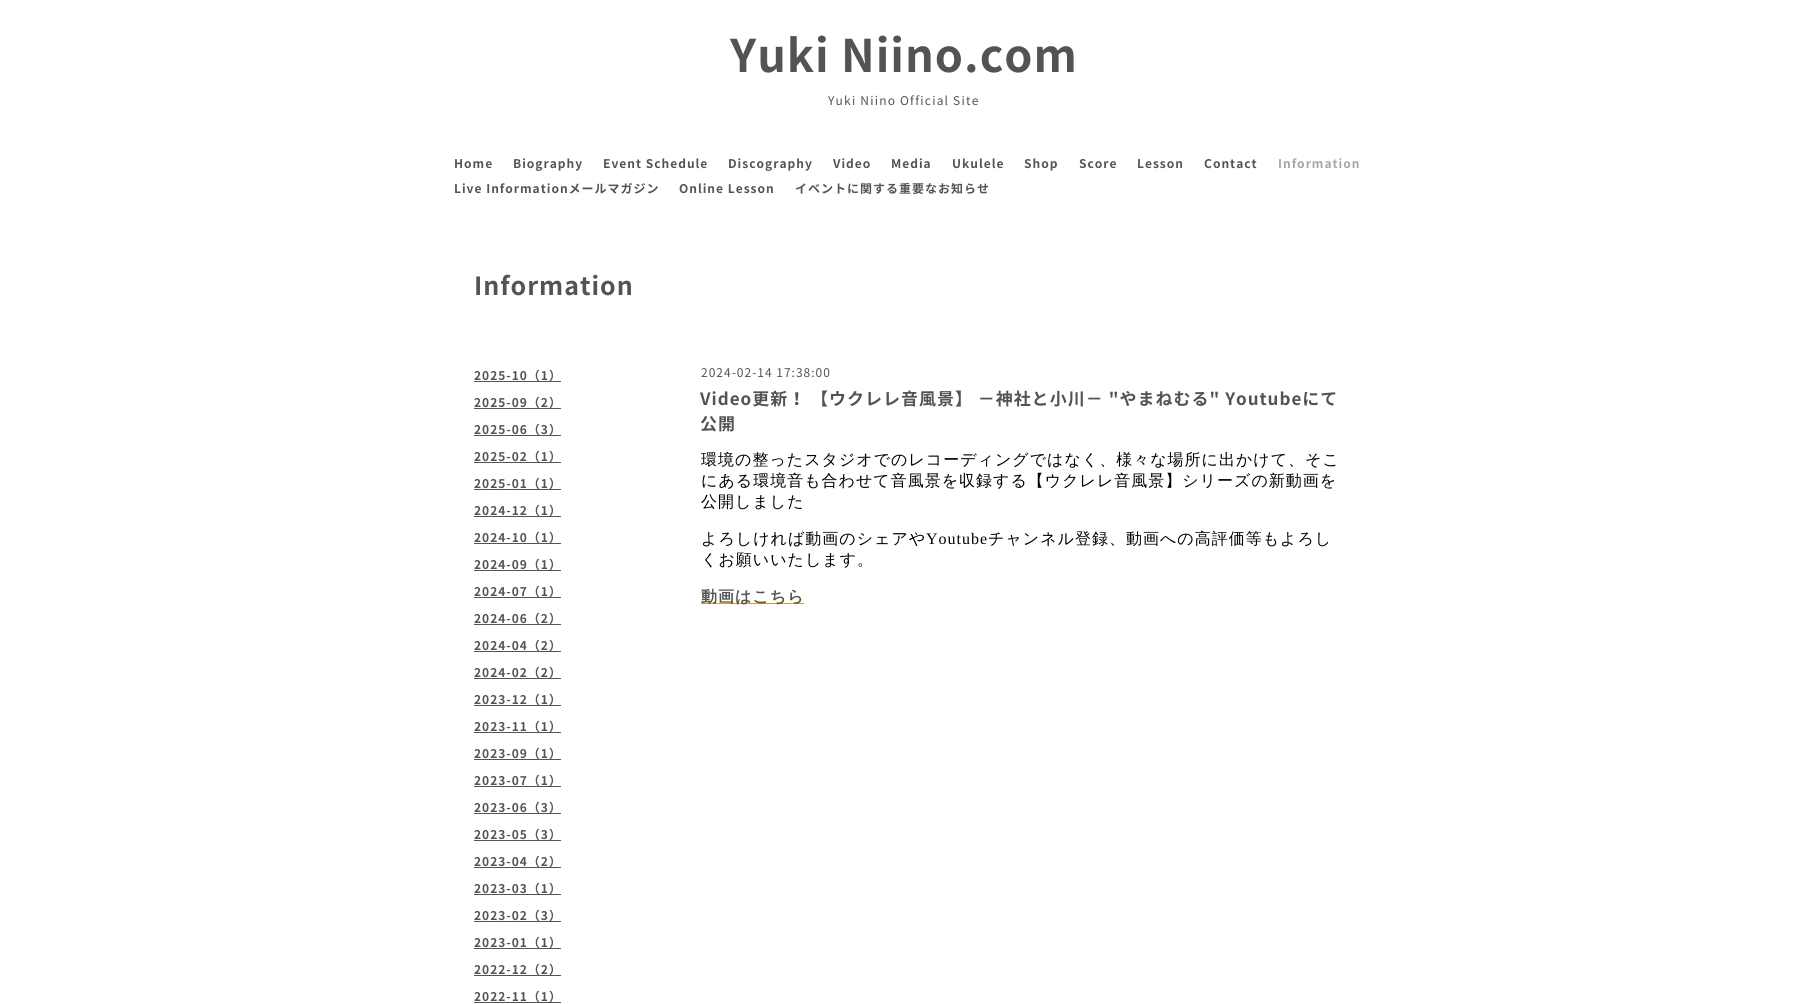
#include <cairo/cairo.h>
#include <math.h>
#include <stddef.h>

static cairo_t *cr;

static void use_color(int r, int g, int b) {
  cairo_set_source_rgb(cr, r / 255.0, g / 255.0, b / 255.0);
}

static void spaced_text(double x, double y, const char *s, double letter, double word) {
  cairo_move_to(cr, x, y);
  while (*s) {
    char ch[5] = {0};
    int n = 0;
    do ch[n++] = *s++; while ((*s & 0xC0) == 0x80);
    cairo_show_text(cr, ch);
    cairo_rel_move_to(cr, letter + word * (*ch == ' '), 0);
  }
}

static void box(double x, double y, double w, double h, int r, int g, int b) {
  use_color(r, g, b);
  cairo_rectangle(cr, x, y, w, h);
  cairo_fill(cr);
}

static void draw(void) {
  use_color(255, 255, 255);
  cairo_paint(cr);
  box(701, 603, 103, 1, 220, 161, 13);
  box(474, 381, 87, 1, 83, 83, 83);
  box(474, 408, 87, 1, 83, 83, 83);
  box(474, 435, 87, 1, 83, 83, 83);
  box(474, 462, 87, 1, 83, 83, 83);
  box(474, 489, 87, 1, 83, 83, 83);
  box(474, 516, 87, 1, 83, 83, 83);
  box(474, 543, 87, 1, 83, 83, 83);
  box(474, 570, 87, 1, 83, 83, 83);
  box(474, 597, 87, 1, 83, 83, 83);
  box(474, 624, 87, 1, 83, 83, 83);
  box(474, 651, 87, 1, 83, 83, 83);
  box(474, 678, 87, 1, 83, 83, 83);
  box(474, 705, 87, 1, 83, 83, 83);
  box(474, 732, 87, 1, 83, 83, 83);
  box(474, 759, 87, 1, 83, 83, 83);
  box(474, 786, 87, 1, 83, 83, 83);
  box(474, 813, 87, 1, 83, 83, 83);
  box(474, 840, 87, 1, 83, 83, 83);
  box(474, 867, 87, 1, 83, 83, 83);
  box(474, 894, 87, 1, 83, 83, 83);
  box(474, 921, 87, 1, 83, 83, 83);
  box(474, 948, 87, 1, 83, 83, 83);
  box(474, 975, 87, 1, 83, 83, 83);
  box(474, 1002, 87, 1, 83, 83, 83);
  cairo_select_font_face(cr, "Noto Sans JP", CAIRO_FONT_SLANT_NORMAL, CAIRO_FONT_WEIGHT_BOLD);
  cairo_set_font_size(cr, 45);
  spaced_text(730, 72, "Yuki Niino.com", 1, 0);
  cairo_select_font_face(cr, "Noto Sans JP", CAIRO_FONT_SLANT_NORMAL, CAIRO_FONT_WEIGHT_NORMAL);
  cairo_set_font_size(cr, 12);
  spaced_text(828, 105, "Yuki Niino Official Site", 1.2, 0);
  cairo_select_font_face(cr, "Noto Sans JP", CAIRO_FONT_SLANT_NORMAL, CAIRO_FONT_WEIGHT_BOLD);
  spaced_text(454, 168, "Home", 1, 0);
  spaced_text(513, 168, "Biography", 1, 0);
  spaced_text(603, 168, "Event Schedule", 1, 0);
  spaced_text(728, 168, "Discography", 1, 0);
  spaced_text(833, 168, "Video", 1, 0);
  spaced_text(891, 168, "Media", 1, 0);
  spaced_text(952, 168, "Ukulele", 1, 0);
  spaced_text(1024, 168, "Shop", 1, 0);
  spaced_text(1079, 168, "Score", 1, 0);
  spaced_text(1137, 168, "Lesson", 1, 0);
  spaced_text(1204, 168, "Contact", 1, 0);
  use_color(165, 165, 165);
  spaced_text(1278, 168, "Information", 1, 0);
  use_color(83, 83, 83);
  spaced_text(454, 193, "Live Informationメールマガジン", 1, 0);
  spaced_text(679, 193, "Online Lesson", 1, 0);
  spaced_text(795, 193, "イベントに関する重要なお知らせ", 1, 0);
  cairo_set_font_size(cr, 25);
  spaced_text(474, 295, "Information", 1, 0);
  cairo_select_font_face(cr, "Noto Sans JP", CAIRO_FONT_SLANT_NORMAL, CAIRO_FONT_WEIGHT_NORMAL);
  cairo_set_font_size(cr, 12);
  spaced_text(701, 377, "2024-02-14 17:38:00", 1, 0);
  cairo_select_font_face(cr, "Noto Sans JP", CAIRO_FONT_SLANT_NORMAL, CAIRO_FONT_WEIGHT_BOLD);
  cairo_set_font_size(cr, 17);
  spaced_text(700, 405, "Video更新！ 【ウクレレ音風景】 −神社と小川− \"やまねむる\" Youtubeにて", 1, 0);
  spaced_text(700, 430, "公開", 1, 0);
  cairo_select_font_face(cr, "WenQuanYi Zen Hei Medium", CAIRO_FONT_SLANT_NORMAL, CAIRO_FONT_WEIGHT_NORMAL);
  cairo_set_font_size(cr, 16);
  use_color(0, 0, 0);
  spaced_text(701, 465, "環境の整ったスタジオでのレコーディングではなく、様々な場所に出かけて、そこ", 1, 0);
  spaced_text(701, 486, "にある環境音も合わせて音風景を収録する【ウクレレ音風景】シリーズの新動画を", 1, 0);
  spaced_text(701, 507, "公開しました", 1, 0);
  spaced_text(701, 544, "よろしければ動画のシェアや", 1, 0);
  cairo_select_font_face(cr, "Liberation Serif", CAIRO_FONT_SLANT_NORMAL, CAIRO_FONT_WEIGHT_NORMAL);
  spaced_text(926, 544, "Youtube", 1, 0);
  cairo_select_font_face(cr, "WenQuanYi Zen Hei Medium", CAIRO_FONT_SLANT_NORMAL, CAIRO_FONT_WEIGHT_NORMAL);
  spaced_text(988, 544, "チャンネル登録、動画への高評価等もよろし", 1, 0);
  spaced_text(701, 565, "くお願いいたします。", 1, 0);
  cairo_select_font_face(cr, "WenQuanYi Zen Hei", CAIRO_FONT_SLANT_NORMAL, CAIRO_FONT_WEIGHT_BOLD);
  use_color(83, 83, 83);
  spaced_text(701, 602, "動画はこちら", 1, 0);
  cairo_select_font_face(cr, "Noto Sans JP", CAIRO_FONT_SLANT_NORMAL, CAIRO_FONT_WEIGHT_BOLD);
  cairo_set_font_size(cr, 12);
  spaced_text(474, 380, "2025-10（1）", 1, 0);
  spaced_text(474, 407, "2025-09（2）", 1, 0);
  spaced_text(474, 434, "2025-06（3）", 1, 0);
  spaced_text(474, 461, "2025-02（1）", 1, 0);
  spaced_text(474, 488, "2025-01（1）", 1, 0);
  spaced_text(474, 515, "2024-12（1）", 1, 0);
  spaced_text(474, 542, "2024-10（1）", 1, 0);
  spaced_text(474, 569, "2024-09（1）", 1, 0);
  spaced_text(474, 596, "2024-07（1）", 1, 0);
  spaced_text(474, 623, "2024-06（2）", 1, 0);
  spaced_text(474, 650, "2024-04（2）", 1, 0);
  spaced_text(474, 677, "2024-02（2）", 1, 0);
  spaced_text(474, 704, "2023-12（1）", 1, 0);
  spaced_text(474, 731, "2023-11（1）", 1, 0);
  spaced_text(474, 758, "2023-09（1）", 1, 0);
  spaced_text(474, 785, "2023-07（1）", 1, 0);
  spaced_text(474, 812, "2023-06（3）", 1, 0);
  spaced_text(474, 839, "2023-05（3）", 1, 0);
  spaced_text(474, 866, "2023-04（2）", 1, 0);
  spaced_text(474, 893, "2023-03（1）", 1, 0);
  spaced_text(474, 920, "2023-02（3）", 1, 0);
  spaced_text(474, 947, "2023-01（1）", 1, 0);
  spaced_text(474, 974, "2022-12（2）", 1, 0);
  spaced_text(474, 1001, "2022-11（1）", 1, 0);
}

int main(void) {
  cairo_surface_t *surface = cairo_image_surface_create(CAIRO_FORMAT_RGB24, 1807, 1004);
  cr = cairo_create(surface);
  cairo_font_options_t *options = cairo_font_options_create();
  cairo_font_options_set_hint_metrics(options, CAIRO_HINT_METRICS_OFF);
  cairo_font_options_set_hint_style(options, CAIRO_HINT_STYLE_NONE);
  cairo_set_font_options(cr, options);
  cairo_set_miter_limit(cr, 4);
  draw();
  cairo_surface_write_to_png(surface, "out.png");
  cairo_font_options_destroy(options);
  cairo_destroy(cr);
  cairo_surface_destroy(surface);
  return 0;
}
